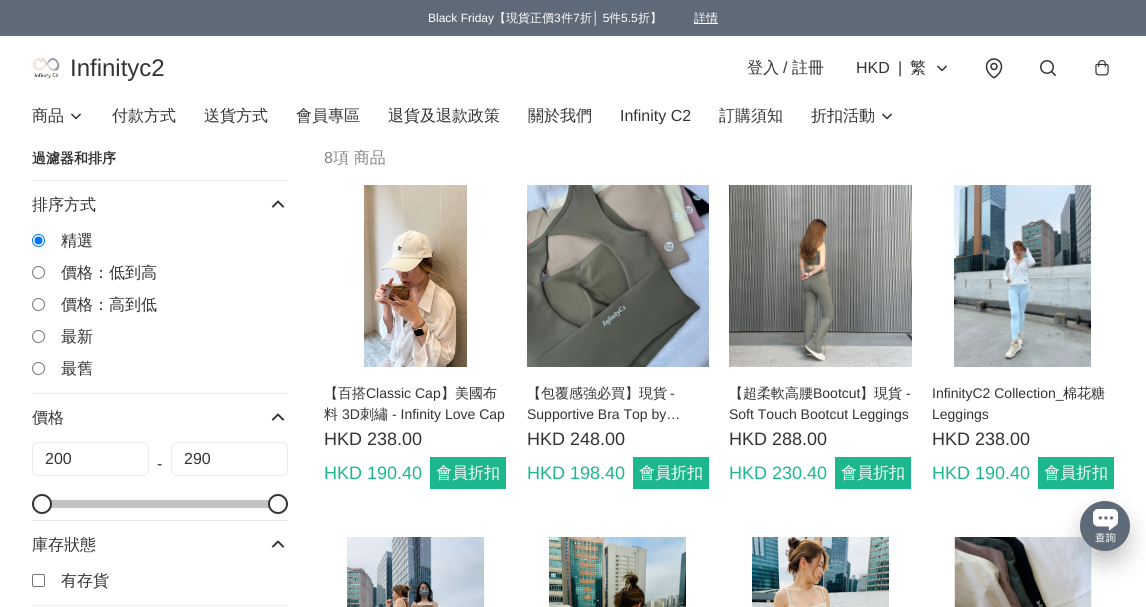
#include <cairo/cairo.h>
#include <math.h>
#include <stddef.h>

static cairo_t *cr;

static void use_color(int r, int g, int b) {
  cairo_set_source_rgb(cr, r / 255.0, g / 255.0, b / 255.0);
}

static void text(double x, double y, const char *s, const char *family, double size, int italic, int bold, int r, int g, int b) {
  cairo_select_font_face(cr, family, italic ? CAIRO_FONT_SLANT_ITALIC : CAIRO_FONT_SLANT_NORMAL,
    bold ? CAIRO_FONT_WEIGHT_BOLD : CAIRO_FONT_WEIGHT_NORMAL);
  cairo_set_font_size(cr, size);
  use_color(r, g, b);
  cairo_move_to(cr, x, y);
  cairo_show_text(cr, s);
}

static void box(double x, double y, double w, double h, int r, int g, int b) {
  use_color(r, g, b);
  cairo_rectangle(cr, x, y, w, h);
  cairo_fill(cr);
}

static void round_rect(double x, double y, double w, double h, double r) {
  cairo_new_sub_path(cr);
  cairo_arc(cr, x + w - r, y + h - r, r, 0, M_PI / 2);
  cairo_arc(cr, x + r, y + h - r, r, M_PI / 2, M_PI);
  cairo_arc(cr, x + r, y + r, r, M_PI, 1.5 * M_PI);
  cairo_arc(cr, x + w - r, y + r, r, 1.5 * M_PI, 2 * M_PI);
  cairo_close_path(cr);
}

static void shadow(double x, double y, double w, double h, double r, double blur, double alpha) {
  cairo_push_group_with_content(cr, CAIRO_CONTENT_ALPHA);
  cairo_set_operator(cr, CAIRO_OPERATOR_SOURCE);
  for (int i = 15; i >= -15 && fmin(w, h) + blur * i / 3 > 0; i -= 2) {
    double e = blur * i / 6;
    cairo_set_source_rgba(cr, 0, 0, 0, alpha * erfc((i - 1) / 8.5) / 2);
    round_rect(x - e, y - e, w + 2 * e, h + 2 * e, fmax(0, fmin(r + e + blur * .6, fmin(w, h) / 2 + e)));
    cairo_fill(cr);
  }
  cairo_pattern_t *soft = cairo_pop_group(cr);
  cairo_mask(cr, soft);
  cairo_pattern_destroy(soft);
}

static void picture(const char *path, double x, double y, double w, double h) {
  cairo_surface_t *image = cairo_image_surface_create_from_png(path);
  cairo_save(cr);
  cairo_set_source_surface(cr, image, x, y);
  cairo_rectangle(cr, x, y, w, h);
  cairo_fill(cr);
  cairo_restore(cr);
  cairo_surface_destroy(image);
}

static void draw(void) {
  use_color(255, 255, 255);
  cairo_paint(cr);
  box(0, 0, 1146, 36, 95, 106, 120);
  box(694, 23, 24, 1, 255, 255, 255);
  picture("img_01.png", 33, 57, 27, 22);
  cairo_new_path(cr);
  cairo_move_to(cr, 938, 66.5);
  cairo_line_to(cr, 942, 70.5);
  cairo_line_to(cr, 946, 66.5);
  use_color(51, 51, 51);
  cairo_set_line_width(cr, 1.5);
  cairo_set_line_cap(cr, CAIRO_LINE_CAP_SQUARE);
  cairo_set_line_join(cr, CAIRO_LINE_JOIN_ROUND);
  cairo_stroke(cr);
  picture("img_02.png", 985, 58, 18, 21);
  picture("img_03.png", 1040, 60, 16, 16);
  picture("img_04.png", 1095, 59, 14, 17);
  cairo_new_path(cr);
  cairo_move_to(cr, 72, 114.5);
  cairo_line_to(cr, 76, 118.5);
  cairo_line_to(cr, 80, 114.5);
  cairo_stroke(cr);
  cairo_new_path(cr);
  cairo_move_to(cr, 883, 114.5);
  cairo_line_to(cr, 887, 118.5);
  cairo_line_to(cr, 891, 114.5);
  cairo_stroke(cr);
  box(32, 180, 256, 1, 235, 235, 235);
  cairo_new_path(cr);
  cairo_move_to(cr, 283, 206.5);
  cairo_line_to(cr, 278, 201.5);
  cairo_line_to(cr, 273, 206.5);
  use_color(51, 51, 51);
  cairo_set_line_width(cr, 1.9);
  cairo_stroke(cr);
  cairo_arc(cr, 38.5, 240.5, 6, 0, 2 * M_PI);
  use_color(0, 117, 255);
  cairo_set_line_width(cr, 1);
  cairo_set_line_cap(cr, CAIRO_LINE_CAP_BUTT);
  cairo_set_line_join(cr, CAIRO_LINE_JOIN_MITER);
  cairo_stroke(cr);
  cairo_arc(cr, 38.5, 240.5, 4, 0, 2 * M_PI);
  cairo_fill(cr);
  cairo_arc(cr, 38.5, 272.5, 6, 0, 2 * M_PI);
  use_color(118, 118, 118);
  cairo_stroke(cr);
  cairo_arc(cr, 38.5, 304.5, 6, 0, 2 * M_PI);
  cairo_stroke(cr);
  cairo_arc(cr, 38.5, 336.5, 6, 0, 2 * M_PI);
  cairo_stroke(cr);
  cairo_arc(cr, 38.5, 368.5, 6, 0, 2 * M_PI);
  cairo_stroke(cr);
  box(32, 393, 256, 1, 235, 235, 235);
  cairo_new_path(cr);
  cairo_move_to(cr, 283, 419.5);
  cairo_line_to(cr, 278, 414.5);
  cairo_line_to(cr, 273, 419.5);
  use_color(51, 51, 51);
  cairo_set_line_width(cr, 1.9);
  cairo_set_line_cap(cr, CAIRO_LINE_CAP_SQUARE);
  cairo_set_line_join(cr, CAIRO_LINE_JOIN_ROUND);
  cairo_stroke(cr);
  round_rect(32.5, 442.5, 116, 33, 5.5);
  use_color(235, 235, 235);
  cairo_set_line_width(cr, 1);
  cairo_set_line_cap(cr, CAIRO_LINE_CAP_BUTT);
  cairo_set_line_join(cr, CAIRO_LINE_JOIN_MITER);
  cairo_stroke(cr);
  round_rect(171.5, 442.5, 116, 33, 5.5);
  cairo_stroke(cr);
  use_color(194, 194, 194);
  round_rect(32, 500, 256, 8, 4);
  cairo_fill(cr);
  use_color(255, 255, 255);
  cairo_arc(cr, 278, 504, 9, 0, 2 * M_PI);
  cairo_fill_preserve(cr);
  use_color(51, 51, 51);
  cairo_set_line_width(cr, 2);
  cairo_stroke(cr);
  use_color(255, 255, 255);
  cairo_arc(cr, 42, 504, 9, 0, 2 * M_PI);
  cairo_fill_preserve(cr);
  use_color(51, 51, 51);
  cairo_stroke(cr);
  box(32, 520, 256, 1, 235, 235, 235);
  cairo_new_path(cr);
  cairo_move_to(cr, 283, 546.5);
  cairo_line_to(cr, 278, 541.5);
  cairo_line_to(cr, 273, 546.5);
  use_color(51, 51, 51);
  cairo_set_line_width(cr, 1.9);
  cairo_set_line_cap(cr, CAIRO_LINE_CAP_SQUARE);
  cairo_set_line_join(cr, CAIRO_LINE_JOIN_ROUND);
  cairo_stroke(cr);
  round_rect(32.5, 574.5, 12, 12, 1.5);
  use_color(118, 118, 118);
  cairo_set_line_width(cr, 1);
  cairo_set_line_cap(cr, CAIRO_LINE_CAP_BUTT);
  cairo_set_line_join(cr, CAIRO_LINE_JOIN_MITER);
  cairo_stroke(cr);
  box(32, 605, 256, 1, 235, 235, 235);
  picture("img_05.png", 364, 185, 103, 182);
  box(430, 457, 76, 32, 28, 183, 141);
  picture("img_06.png", 527, 185, 182, 182);
  box(633, 457, 76, 32, 28, 183, 141);
  picture("img_07.png", 729, 185, 183, 182);
  box(835, 457, 76, 32, 28, 183, 141);
  picture("img_08.png", 954, 185, 137, 182);
  box(1038, 457, 76, 32, 28, 183, 141);
  picture("img_09.png", 347, 537, 137, 70);
  picture("img_10.png", 549, 537, 137, 70);
  picture("img_11.png", 752, 537, 137, 70);
  picture("img_12.png", 954, 537, 138, 70);
  use_color(0, 0, 0);
  shadow(1090, 526, 30, 30, 15, 15, 0.3);
  shadow(1080, 506, 50, 50, 25, 10, 0.05);
  use_color(95, 106, 120);
  cairo_arc(cr, 1105, 526, 25, 0, 2 * M_PI);
  cairo_fill(cr);
  picture("img_13.png", 1093, 509, 25, 34);
  text(428, 22, "Black Friday", "Liberation Sans", 12, 0, 0, 255, 255, 255);
  text(494, 22, "【現貨正價", "WenQuanYi Zen Hei Medium", 12, 0, 0, 255, 255, 255);
  text(554, 22, "3", "Liberation Sans", 12, 0, 0, 255, 255, 255);
  text(561, 22, "件", "WenQuanYi Zen Hei Medium", 12, 0, 0, 255, 255, 255);
  text(573, 22, "7", "Liberation Sans", 12, 0, 0, 255, 255, 255);
  text(580, 22, "折", "WenQuanYi Zen Hei Medium", 12, 0, 0, 255, 255, 255);
  text(592, 22, "│ 5", "Liberation Sans", 12, 0, 0, 255, 255, 255);
  text(609, 22, "件", "WenQuanYi Zen Hei Medium", 12, 0, 0, 255, 255, 255);
  text(621, 22, "5.5", "Liberation Sans", 12, 0, 0, 255, 255, 255);
  text(638, 22, "折】", "WenQuanYi Zen Hei Medium", 12, 0, 0, 255, 255, 255);
  text(694, 22, "詳情", "WenQuanYi Zen Hei Medium", 12, 0, 0, 255, 255, 255);
  text(70, 76, "Infinityc2", "Liberation Sans", 24, 0, 0, 51, 51, 51);
  text(747, 73, "登入", "WenQuanYi Zen Hei Medium", 16, 0, 0, 51, 51, 51);
  text(783, 73, "/", "Liberation Sans", 16, 0, 0, 51, 51, 51);
  text(792, 73, "註冊", "WenQuanYi Zen Hei Medium", 16, 0, 0, 51, 51, 51);
  text(856, 73, "HKD", "Liberation Sans", 16, 0, 0, 51, 51, 51);
  text(898, 73, "|", "Liberation Sans", 16, 0, 0, 51, 51, 51);
  text(910, 73, "繁", "WenQuanYi Zen Hei Medium", 16, 0, 0, 51, 51, 51);
  text(32, 121, "商品", "WenQuanYi Zen Hei Medium", 16, 0, 0, 51, 51, 51);
  text(112, 121, "付款方式", "WenQuanYi Zen Hei Medium", 16, 0, 0, 51, 51, 51);
  text(204, 121, "送貨方式", "WenQuanYi Zen Hei Medium", 16, 0, 0, 51, 51, 51);
  text(296, 121, "會員專區", "WenQuanYi Zen Hei Medium", 16, 0, 0, 51, 51, 51);
  text(388, 121, "退貨及退款政策", "WenQuanYi Zen Hei Medium", 16, 0, 0, 51, 51, 51);
  text(528, 121, "關於我們", "WenQuanYi Zen Hei Medium", 16, 0, 0, 51, 51, 51);
  text(620, 121, "Infinity C2", "Liberation Sans", 16, 0, 0, 51, 51, 51);
  text(719, 121, "訂購須知", "WenQuanYi Zen Hei Medium", 16, 0, 0, 51, 51, 51);
  text(811, 121, "折扣活動", "WenQuanYi Zen Hei Medium", 16, 0, 0, 51, 51, 51);
  text(32, 163, "過濾器和排序", "WenQuanYi Zen Hei", 14, 0, 1, 51, 51, 51);
  text(32, 210, "排序方式", "WenQuanYi Zen Hei Medium", 16, 0, 0, 51, 51, 51);
  text(61, 246, "精選", "WenQuanYi Zen Hei Medium", 16, 0, 0, 51, 51, 51);
  text(61, 278, "價格：低到高", "WenQuanYi Zen Hei Medium", 16, 0, 0, 51, 51, 51);
  text(61, 310, "價格：高到低", "WenQuanYi Zen Hei Medium", 16, 0, 0, 51, 51, 51);
  text(61, 342, "最新", "WenQuanYi Zen Hei Medium", 16, 0, 0, 51, 51, 51);
  text(61, 374, "最舊", "WenQuanYi Zen Hei Medium", 16, 0, 0, 51, 51, 51);
  text(32, 423, "價格", "WenQuanYi Zen Hei Medium", 16, 0, 0, 51, 51, 51);
  text(45, 464, "200", "Liberation Sans", 16, 0, 0, 51, 51, 51);
  text(157, 469, "-", "Liberation Sans", 16, 0, 0, 51, 51, 51);
  text(184, 464, "290", "Liberation Sans", 16, 0, 0, 51, 51, 51);
  text(32, 550, "庫存狀態", "WenQuanYi Zen Hei Medium", 16, 0, 0, 51, 51, 51);
  text(61, 586, "有存貨", "WenQuanYi Zen Hei Medium", 16, 0, 0, 51, 51, 51);
  text(324, 163, "8", "Liberation Sans", 16, 0, 0, 133, 133, 133);
  text(333, 163, "項 商品", "WenQuanYi Zen Hei Medium", 16, 0, 0, 133, 133, 133);
  text(324, 398, "【百搭", "WenQuanYi Zen Hei Medium", 14, 0, 0, 51, 51, 51);
  text(366, 398, "Classic Cap", "Liberation Sans", 14, 0, 0, 51, 51, 51);
  text(441, 398, "】美國布", "WenQuanYi Zen Hei Medium", 14, 0, 0, 51, 51, 51);
  text(324, 419, "料", "WenQuanYi Zen Hei Medium", 14, 0, 0, 51, 51, 51);
  text(342, 419, "3D", "Liberation Sans", 14, 0, 0, 51, 51, 51);
  text(360, 419, "刺繡", "WenQuanYi Zen Hei Medium", 14, 0, 0, 51, 51, 51);
  text(392, 419, "- Infinity Love Cap", "Liberation Sans", 14, 0, 0, 51, 51, 51);
  text(324, 445, "HKD 238.00", "Liberation Sans", 18, 0, 0, 51, 51, 51);
  text(324, 479, "HKD 190.40", "Liberation Sans", 18, 0, 0, 28, 183, 141);
  text(436, 478, "會員折扣", "WenQuanYi Zen Hei Medium", 16, 0, 0, 255, 255, 255);
  text(527, 398, "【包覆感強必買】現貨", "WenQuanYi Zen Hei Medium", 14, 0, 0, 51, 51, 51);
  text(670, 398, "-", "Liberation Sans", 14, 0, 0, 51, 51, 51);
  text(527, 419, "Supportive Bra Top by…", "Liberation Sans", 14, 0, 0, 51, 51, 51);
  text(527, 445, "HKD 248.00", "Liberation Sans", 18, 0, 0, 51, 51, 51);
  text(527, 479, "HKD 198.40", "Liberation Sans", 18, 0, 0, 28, 183, 141);
  text(639, 478, "會員折扣", "WenQuanYi Zen Hei Medium", 16, 0, 0, 255, 255, 255);
  text(729, 398, "【超柔軟高腰", "WenQuanYi Zen Hei Medium", 14, 0, 0, 51, 51, 51);
  text(813, 398, "Bootcut", "Liberation Sans", 14, 0, 0, 51, 51, 51);
  text(860, 398, "】現貨", "WenQuanYi Zen Hei Medium", 14, 0, 0, 51, 51, 51);
  text(906, 398, "-", "Liberation Sans", 14, 0, 0, 51, 51, 51);
  text(729, 419, "Soft Touch Bootcut Leggings", "Liberation Sans", 14, 0, 0, 51, 51, 51);
  text(729, 445, "HKD 288.00", "Liberation Sans", 18, 0, 0, 51, 51, 51);
  text(729, 479, "HKD 230.40", "Liberation Sans", 18, 0, 0, 28, 183, 141);
  text(841, 478, "會員折扣", "WenQuanYi Zen Hei Medium", 16, 0, 0, 255, 255, 255);
  text(932, 398, "InfinityC2 Collection_", "Liberation Sans", 14, 0, 0, 51, 51, 51);
  text(1063, 398, "棉花糖", "WenQuanYi Zen Hei Medium", 14, 0, 0, 51, 51, 51);
  text(932, 419, "Leggings", "Liberation Sans", 14, 0, 0, 51, 51, 51);
  text(932, 445, "HKD 238.00", "Liberation Sans", 18, 0, 0, 51, 51, 51);
  text(932, 479, "HKD 190.40", "Liberation Sans", 18, 0, 0, 28, 183, 141);
  text(1044, 478, "會員折扣", "WenQuanYi Zen Hei Medium", 16, 0, 0, 255, 255, 255);
}

int main(void) {
  cairo_surface_t *surface = cairo_image_surface_create(CAIRO_FORMAT_RGB24, 1146, 607);
  cr = cairo_create(surface);
  cairo_font_options_t *options = cairo_font_options_create();
  cairo_font_options_set_hint_metrics(options, CAIRO_HINT_METRICS_OFF);
  cairo_font_options_set_hint_style(options, CAIRO_HINT_STYLE_NONE);
  cairo_set_font_options(cr, options);
  cairo_set_miter_limit(cr, 4);
  draw();
  cairo_surface_write_to_png(surface, "out.png");
  cairo_font_options_destroy(options);
  cairo_destroy(cr);
  cairo_surface_destroy(surface);
  return 0;
}
